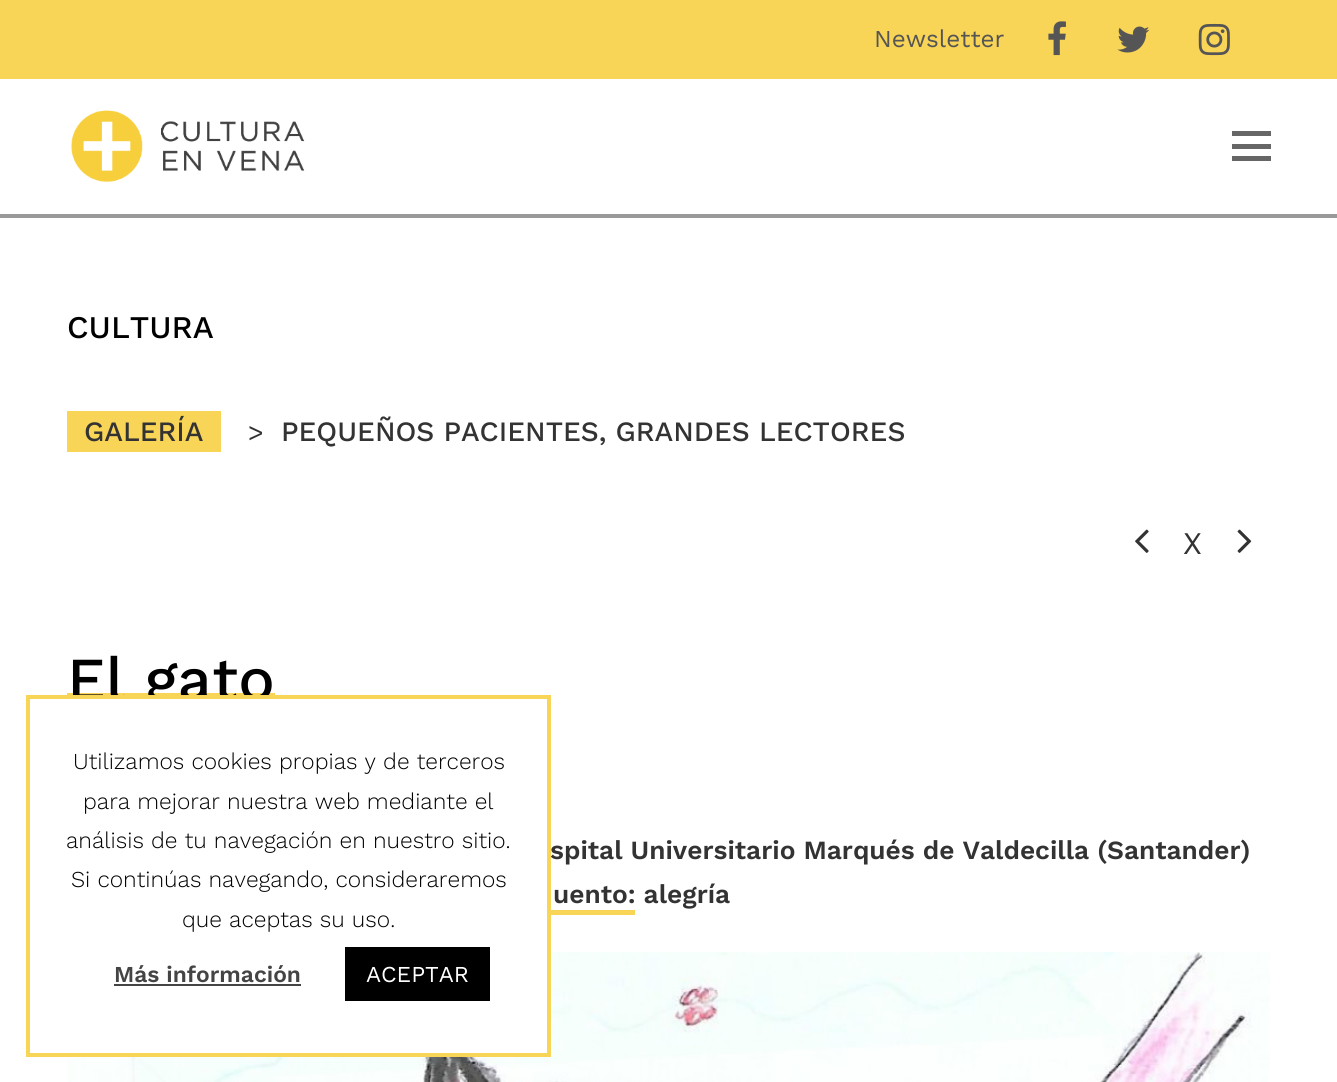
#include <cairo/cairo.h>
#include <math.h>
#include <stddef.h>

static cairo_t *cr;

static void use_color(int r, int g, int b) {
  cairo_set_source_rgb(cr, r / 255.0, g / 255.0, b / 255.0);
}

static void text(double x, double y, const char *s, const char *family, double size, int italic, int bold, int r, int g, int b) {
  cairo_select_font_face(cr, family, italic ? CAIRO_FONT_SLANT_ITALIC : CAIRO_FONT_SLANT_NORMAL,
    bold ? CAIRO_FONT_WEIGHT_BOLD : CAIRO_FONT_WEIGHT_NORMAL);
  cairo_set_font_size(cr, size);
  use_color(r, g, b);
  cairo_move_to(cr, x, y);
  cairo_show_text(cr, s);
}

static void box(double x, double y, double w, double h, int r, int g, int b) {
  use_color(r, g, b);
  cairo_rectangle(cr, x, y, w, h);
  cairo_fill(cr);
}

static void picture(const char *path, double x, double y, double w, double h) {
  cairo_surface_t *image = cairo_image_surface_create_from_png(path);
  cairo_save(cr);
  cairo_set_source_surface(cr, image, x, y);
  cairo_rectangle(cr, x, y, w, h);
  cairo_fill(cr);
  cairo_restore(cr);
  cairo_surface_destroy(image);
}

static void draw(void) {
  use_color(255, 255, 255);
  cairo_paint(cr);
  box(0, 0, 1337, 79, 248, 212, 87);
  picture("img_01.png", 1048, 21, 18, 35);
  picture("img_02.png", 1117, 26, 33, 27);
  picture("img_03.png", 1198, 23, 32, 33);
  box(0, 214, 1337, 4, 153, 153, 153);
  picture("img_04.png", 71, 110, 234, 73);
  box(1232, 144, 39, 5, 102, 102, 102);
  box(1232, 131, 39, 5, 102, 102, 102);
  box(1232, 156, 39, 5, 102, 102, 102);
  box(67, 411, 154, 41, 248, 212, 87);
  picture("img_05.png", 1135, 529, 14, 24);
  picture("img_06.png", 1237, 529, 15, 24);
  box(67, 693, 208, 2, 248, 212, 87);
  box(551, 910, 84, 5, 248, 212, 87);
  picture("img_07.png", 67, 952, 1203, 130);
  text(874, 47, "Newsletter", "Work Sans", 24.25, 0, 0, 85, 85, 85);
  text(67, 338, "CULTURA", "Work Sans Medium", 31.5, 0, 0, 0, 0, 0);
  text(84, 441, "GALERÍA", "Work Sans Medium", 28, 0, 0, 51, 51, 51);
  text(248, 441, ">", "Work Sans", 26.25, 0, 0, 51, 51, 51);
  text(281, 441, "PEQUEÑOS PACIENTES, GRANDES LECTORES", "Work Sans Medium", 28, 0, 0, 51, 51, 51);
  text(1183, 554, "X", "Work Sans", 31.5, 0, 0, 51, 51, 51);
  text(67, 700, "El gato", "Work Sans Medium", 61, 0, 0, 0, 0, 0);
  text(550, 859, "spital Universitario Marqués de Valdecilla (Santander)", "Work Sans SemiBold", 26.25, 0, 0, 51, 51, 51);
  text(553, 903, "uento: alegría", "Work Sans SemiBold", 26.25, 0, 0, 51, 51, 51);
  box(67, 699, 480, 354, 255, 255, 255);
  cairo_rectangle(cr, 28, 697, 521, 358);
  use_color(248, 212, 87);
  cairo_set_line_width(cr, 4);
  cairo_stroke(cr);
  text(73, 769, "Utilizamos cookies propias y de terceros", "Work Sans Light", 22.75, 0, 0, 0, 0, 0);
  text(83, 809, "para mejorar nuestra web mediante el", "Work Sans Light", 22.75, 0, 0, 0, 0, 0);
  text(66, 848, "análisis de tu navegación en nuestro sitio.", "Work Sans Light", 22.75, 0, 0, 0, 0, 0);
  text(71, 887, "Si continúas navegando, consideraremos", "Work Sans Light", 22.75, 0, 0, 0, 0, 0);
  text(182, 927, "que aceptas su uso.", "Work Sans Light", 22.75, 0, 0, 0, 0, 0);
  text(114, 982, "Más información", "Work Sans SemiBold", 22.75, 0, 0, 68, 68, 68);
  box(114, 984, 187, 2, 68, 68, 68);
  box(345, 947, 145, 54, 0, 0, 0);
  text(366, 982, "ACEPTAR", "Work Sans", 22.75, 0, 0, 255, 255, 255);
}

int main(void) {
  cairo_surface_t *surface = cairo_image_surface_create(CAIRO_FORMAT_RGB24, 1337, 1082);
  cr = cairo_create(surface);
  cairo_font_options_t *options = cairo_font_options_create();
  cairo_font_options_set_hint_metrics(options, CAIRO_HINT_METRICS_OFF);
  cairo_font_options_set_hint_style(options, CAIRO_HINT_STYLE_NONE);
  cairo_set_font_options(cr, options);
  cairo_set_miter_limit(cr, 4);
  draw();
  cairo_surface_write_to_png(surface, "out.png");
  cairo_font_options_destroy(options);
  cairo_destroy(cr);
  cairo_surface_destroy(surface);
  return 0;
}
